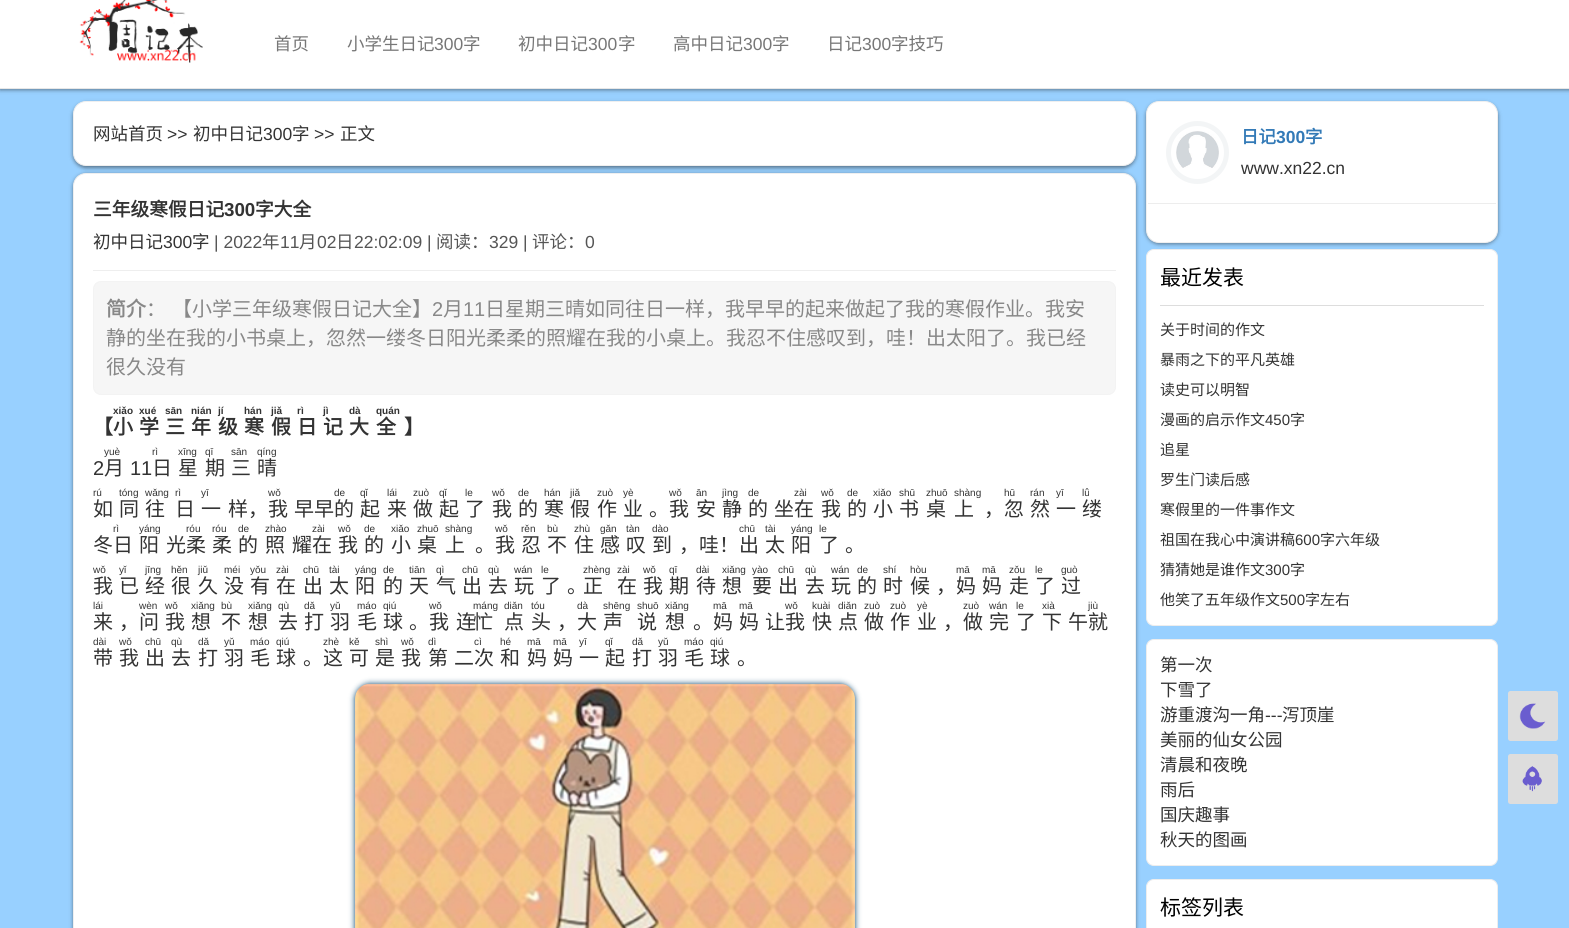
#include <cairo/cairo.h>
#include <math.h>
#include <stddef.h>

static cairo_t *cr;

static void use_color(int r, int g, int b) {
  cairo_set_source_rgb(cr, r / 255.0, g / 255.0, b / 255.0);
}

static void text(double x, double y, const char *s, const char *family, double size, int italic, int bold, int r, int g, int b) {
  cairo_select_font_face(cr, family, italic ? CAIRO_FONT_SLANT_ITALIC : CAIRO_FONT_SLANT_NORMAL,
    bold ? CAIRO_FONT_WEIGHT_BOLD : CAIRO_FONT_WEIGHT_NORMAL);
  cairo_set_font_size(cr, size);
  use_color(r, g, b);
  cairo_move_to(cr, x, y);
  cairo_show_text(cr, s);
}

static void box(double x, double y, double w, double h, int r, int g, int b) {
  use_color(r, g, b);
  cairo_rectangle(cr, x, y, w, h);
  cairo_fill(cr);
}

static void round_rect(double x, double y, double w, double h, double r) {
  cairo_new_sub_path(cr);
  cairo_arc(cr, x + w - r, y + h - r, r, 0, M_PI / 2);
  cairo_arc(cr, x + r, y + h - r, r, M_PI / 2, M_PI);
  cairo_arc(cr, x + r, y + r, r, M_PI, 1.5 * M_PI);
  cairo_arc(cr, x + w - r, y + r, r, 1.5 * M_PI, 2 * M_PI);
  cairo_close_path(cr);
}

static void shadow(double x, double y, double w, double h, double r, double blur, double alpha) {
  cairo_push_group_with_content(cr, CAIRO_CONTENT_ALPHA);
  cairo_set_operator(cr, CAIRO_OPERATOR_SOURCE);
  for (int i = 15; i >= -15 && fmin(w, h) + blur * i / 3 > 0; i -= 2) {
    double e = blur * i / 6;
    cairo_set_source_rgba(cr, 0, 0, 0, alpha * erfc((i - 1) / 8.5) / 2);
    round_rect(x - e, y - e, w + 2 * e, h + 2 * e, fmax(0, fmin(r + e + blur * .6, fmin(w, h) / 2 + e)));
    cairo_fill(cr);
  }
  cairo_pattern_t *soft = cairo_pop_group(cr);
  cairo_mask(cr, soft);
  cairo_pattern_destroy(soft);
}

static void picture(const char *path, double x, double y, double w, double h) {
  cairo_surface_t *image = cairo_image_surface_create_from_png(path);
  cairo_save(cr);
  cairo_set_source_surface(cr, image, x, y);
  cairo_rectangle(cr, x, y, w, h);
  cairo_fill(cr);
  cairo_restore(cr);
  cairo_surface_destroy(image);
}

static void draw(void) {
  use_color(152, 208, 255);
  cairo_paint(cr);
  use_color(26, 26, 26);
  shadow(0, 1, 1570, 89, 0, 2, 0.5);
  box(0, 0, 1569, 88, 255, 255, 255);
  box(0, 88, 1569, 1, 231, 231, 231);
  picture("img_01.png", 79, 0, 124, 63);
  use_color(26, 26, 26);
  shadow(73, 103, 1063, 65, 13, 2, 0.5);
  use_color(255, 255, 255);
  round_rect(73.5, 101.5, 1062, 64, 12.5);
  cairo_fill_preserve(cr);
  use_color(239, 239, 239);
  cairo_set_line_width(cr, 1);
  cairo_stroke(cr);
  use_color(26, 26, 26);
  shadow(73, 174, 1063, 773, 13, 2, 0.5);
  use_color(255, 255, 255);
  round_rect(73.5, 173.5, 1062, 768, 12.5);
  cairo_fill_preserve(cr);
  use_color(239, 239, 239);
  cairo_stroke(cr);
  box(93, 270, 1023, 1, 238, 238, 238);
  use_color(246, 246, 246);
  round_rect(93.5, 281.5, 1022, 113, 7.5);
  cairo_fill_preserve(cr);
  use_color(243, 243, 243);
  cairo_stroke(cr);
  use_color(0, 67, 111);
  shadow(355, 684, 500, 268, 15, 3, 1);
  picture("img_02.png", 355, 683, 500, 245);
  use_color(26, 26, 26);
  shadow(1146, 103, 352, 141, 13, 2, 0.5);
  use_color(255, 255, 255);
  round_rect(1146.5, 101.5, 351, 141, 12.5);
  cairo_fill_preserve(cr);
  use_color(239, 239, 239);
  cairo_stroke(cr);
  box(1148, 203, 348, 1, 237, 237, 237);
  cairo_arc(cr, 1197.5, 152.5, 29, 0, 2 * M_PI);
  use_color(243, 245, 246);
  cairo_set_line_width(cr, 5);
  cairo_stroke(cr);
  picture("img_03.png", 1176, 131, 43, 37);
  use_color(255, 255, 255);
  round_rect(1146.5, 249.5, 351, 376, 7.5);
  cairo_fill_preserve(cr);
  use_color(237, 237, 237);
  cairo_set_line_width(cr, 1);
  cairo_stroke(cr);
  box(1160, 305, 324, 1, 221, 221, 221);
  use_color(255, 255, 255);
  round_rect(1146.5, 639.5, 351, 226, 7.5);
  cairo_fill_preserve(cr);
  use_color(237, 237, 237);
  cairo_stroke(cr);
  use_color(255, 255, 255);
  round_rect(1146.5, 879.5, 351, 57, 7.5);
  cairo_fill_preserve(cr);
  use_color(237, 237, 237);
  cairo_stroke(cr);
  use_color(221, 221, 221);
  round_rect(1508, 691, 50, 50, 2.5);
  cairo_fill(cr);
  picture("img_04.png", 1519, 703, 27, 26);
  round_rect(1508, 754, 50, 50, 2.5);
  cairo_fill(cr);
  picture("img_05.png", 1522, 766, 20, 26);
  text(274, 50, "首页", "Noto Sans CJK SC", 17.5, 0, 0, 119, 119, 119);
  text(347, 50, "小学生日记", "Noto Sans CJK SC", 17.5, 0, 0, 119, 119, 119);
  text(434, 50, "300", "Liberation Sans", 17.5, 0, 0, 119, 119, 119);
  text(463, 50, "字", "Noto Sans CJK SC", 17.5, 0, 0, 119, 119, 119);
  text(518, 50, "初中日记", "Noto Sans CJK SC", 17.5, 0, 0, 119, 119, 119);
  text(588, 50, "300", "Liberation Sans", 17.5, 0, 0, 119, 119, 119);
  text(618, 50, "字", "Noto Sans CJK SC", 17.5, 0, 0, 119, 119, 119);
  text(673, 50, "高中日记", "Noto Sans CJK SC", 17.5, 0, 0, 119, 119, 119);
  text(743, 50, "300", "Liberation Sans", 17.5, 0, 0, 119, 119, 119);
  text(772, 50, "字", "Noto Sans CJK SC", 17.5, 0, 0, 119, 119, 119);
  text(827, 50, "日记", "Noto Sans CJK SC", 17.5, 0, 0, 119, 119, 119);
  text(862, 50, "300", "Liberation Sans", 17.5, 0, 0, 119, 119, 119);
  text(891, 50, "字技巧", "Noto Sans CJK SC", 17.5, 0, 0, 119, 119, 119);
  text(93, 140, "网站首页", "Noto Sans CJK SC", 17.5, 0, 0, 51, 51, 51);
  text(167, 140, ">>", "Liberation Sans", 17.5, 0, 0, 51, 51, 51);
  text(193, 140, "初中日记", "Noto Sans CJK SC", 17.5, 0, 0, 51, 51, 51);
  text(263, 140, "300", "Liberation Sans", 17.5, 0, 0, 51, 51, 51);
  text(292, 140, "字", "Noto Sans CJK SC", 17.5, 0, 0, 51, 51, 51);
  text(314, 140, ">>", "Liberation Sans", 17.5, 0, 0, 51, 51, 51);
  text(340, 140, "正文", "Noto Sans CJK SC", 17.5, 0, 0, 51, 51, 51);
  text(93, 216, "三年级寒假日记", "Noto Sans CJK SC", 18.75, 0, 1, 51, 51, 51);
  text(224, 216, "300", "Liberation Sans", 18.75, 0, 1, 51, 51, 51);
  text(255, 216, "字大全", "Noto Sans CJK SC", 18.75, 0, 1, 51, 51, 51);
  text(93, 248, "初中日记", "Noto Sans CJK SC", 17.5, 0, 0, 51, 51, 51);
  text(163, 248, "300", "Liberation Sans", 17.5, 0, 0, 51, 51, 51);
  text(192, 248, "字", "Noto Sans CJK SC", 17.5, 0, 0, 51, 51, 51);
  text(214, 248, "| 2022", "Liberation Sans", 17.5, 0, 0, 85, 85, 85);
  text(262, 248, "年", "Noto Sans CJK SC", 17.5, 0, 0, 85, 85, 85);
  text(280, 248, "11", "Liberation Sans", 17.5, 0, 0, 85, 85, 85);
  text(299, 248, "月", "Noto Sans CJK SC", 17.5, 0, 0, 85, 85, 85);
  text(317, 248, "02", "Liberation Sans", 17.5, 0, 0, 85, 85, 85);
  text(336, 248, "日", "Noto Sans CJK SC", 17.5, 0, 0, 85, 85, 85);
  text(354, 248, "22:02:09 |", "Liberation Sans", 17.5, 0, 0, 85, 85, 85);
  text(436, 248, "阅读：", "Noto Sans CJK SC", 17.5, 0, 0, 85, 85, 85);
  text(489, 248, "329 |", "Liberation Sans", 17.5, 0, 0, 85, 85, 85);
  text(532, 248, "评论：", "Noto Sans CJK SC", 17.5, 0, 0, 85, 85, 85);
  text(585, 248, "0", "Liberation Sans", 17.5, 0, 0, 85, 85, 85);
  text(106, 316, "简介", "Noto Sans CJK SC", 20, 0, 1, 136, 136, 136);
  text(146, 316, "：", "Noto Sans CJK SC", 20, 0, 0, 136, 136, 136);
  text(172, 316, "【小学三年级寒假日记大全】", "Noto Sans CJK SC", 20, 0, 0, 136, 136, 136);
  text(432, 316, "2", "Liberation Sans", 20, 0, 0, 136, 136, 136);
  text(443, 316, "月", "Noto Sans CJK SC", 20, 0, 0, 136, 136, 136);
  text(463, 316, "11", "Liberation Sans", 20, 0, 0, 136, 136, 136);
  text(485, 316, "日星期三晴如同往日一样，我早早的起来做起了我的寒假作业。我安", "Noto Sans CJK SC", 20, 0, 0, 136, 136, 136);
  text(106, 345, "静的坐在我的小书桌上，忽然一缕冬日阳光柔柔的照耀在我的小桌上。我忍不住感叹到，哇！出太阳了。我已经", "Noto Sans CJK SC", 20, 0, 0, 136, 136, 136);
  text(106, 374, "很久没有", "Noto Sans CJK SC", 20, 0, 0, 136, 136, 136);
  text(113, 414, "xiǎo", "Liberation Sans", 10, 0, 1, 51, 51, 51);
  text(139, 414, "xué", "Liberation Sans", 10, 0, 1, 51, 51, 51);
  text(139, 434, "学", "Noto Sans CJK SC", 20, 0, 1, 51, 51, 51);
  text(165, 414, "sān", "Liberation Sans", 10, 0, 1, 51, 51, 51);
  text(165, 434, "三", "Noto Sans CJK SC", 20, 0, 1, 51, 51, 51);
  text(191, 414, "nián", "Liberation Sans", 10, 0, 1, 51, 51, 51);
  text(191, 434, "年", "Noto Sans CJK SC", 20, 0, 1, 51, 51, 51);
  text(218, 414, "jí", "Liberation Sans", 10, 0, 1, 51, 51, 51);
  text(218, 434, "级", "Noto Sans CJK SC", 20, 0, 1, 51, 51, 51);
  text(244, 414, "hán", "Liberation Sans", 10, 0, 1, 51, 51, 51);
  text(244, 434, "寒", "Noto Sans CJK SC", 20, 0, 1, 51, 51, 51);
  text(271, 414, "jiǎ", "Liberation Sans", 10, 0, 1, 51, 51, 51);
  text(271, 434, "假", "Noto Sans CJK SC", 20, 0, 1, 51, 51, 51);
  text(297, 414, "rì", "Liberation Sans", 10, 0, 1, 51, 51, 51);
  text(297, 434, "日", "Noto Sans CJK SC", 20, 0, 1, 51, 51, 51);
  text(323, 414, "jì", "Liberation Sans", 10, 0, 1, 51, 51, 51);
  text(323, 434, "记", "Noto Sans CJK SC", 20, 0, 1, 51, 51, 51);
  text(349, 414, "dà", "Liberation Sans", 10, 0, 1, 51, 51, 51);
  text(349, 434, "大", "Noto Sans CJK SC", 20, 0, 1, 51, 51, 51);
  text(376, 414, "quán", "Liberation Sans", 10, 0, 1, 51, 51, 51);
  text(376, 434, "全", "Noto Sans CJK SC", 20, 0, 1, 51, 51, 51);
  text(93, 434, "【小", "Noto Sans CJK SC", 20, 0, 1, 51, 51, 51);
  text(404, 434, "】", "Noto Sans CJK SC", 20, 0, 1, 51, 51, 51);
  text(93, 475, "2", "Liberation Sans", 20, 0, 0, 51, 51, 51);
  text(104, 455, "yuè", "Liberation Sans", 10, 0, 0, 51, 51, 51);
  text(104, 475, "月", "Noto Sans CJK SC", 20, 0, 0, 51, 51, 51);
  text(130, 475, "11", "Liberation Sans", 20, 0, 0, 51, 51, 51);
  text(152, 455, "rì", "Liberation Sans", 10, 0, 0, 51, 51, 51);
  text(152, 475, "日", "Noto Sans CJK SC", 20, 0, 0, 51, 51, 51);
  text(178, 455, "xīng", "Liberation Sans", 10, 0, 0, 51, 51, 51);
  text(178, 475, "星", "Noto Sans CJK SC", 20, 0, 0, 51, 51, 51);
  text(205, 455, "qī", "Liberation Sans", 10, 0, 0, 51, 51, 51);
  text(205, 475, "期", "Noto Sans CJK SC", 20, 0, 0, 51, 51, 51);
  text(231, 455, "sān", "Liberation Sans", 10, 0, 0, 51, 51, 51);
  text(231, 475, "三", "Noto Sans CJK SC", 20, 0, 0, 51, 51, 51);
  text(257, 455, "qíng", "Liberation Sans", 10, 0, 0, 51, 51, 51);
  text(257, 475, "晴", "Noto Sans CJK SC", 20, 0, 0, 51, 51, 51);
  text(93, 496, "rú", "Liberation Sans", 10, 0, 0, 51, 51, 51);
  text(93, 516, "如", "Noto Sans CJK SC", 20, 0, 0, 51, 51, 51);
  text(119, 496, "tóng", "Liberation Sans", 10, 0, 0, 51, 51, 51);
  text(119, 516, "同", "Noto Sans CJK SC", 20, 0, 0, 51, 51, 51);
  text(145, 496, "wǎng", "Liberation Sans", 10, 0, 0, 51, 51, 51);
  text(145, 516, "往", "Noto Sans CJK SC", 20, 0, 0, 51, 51, 51);
  text(175, 496, "rì", "Liberation Sans", 10, 0, 0, 51, 51, 51);
  text(175, 516, "日", "Noto Sans CJK SC", 20, 0, 0, 51, 51, 51);
  text(201, 496, "yī", "Liberation Sans", 10, 0, 0, 51, 51, 51);
  text(201, 516, "一", "Noto Sans CJK SC", 20, 0, 0, 51, 51, 51);
  text(268, 496, "wǒ", "Liberation Sans", 10, 0, 0, 51, 51, 51);
  text(334, 496, "de", "Liberation Sans", 10, 0, 0, 51, 51, 51);
  text(360, 496, "qǐ", "Liberation Sans", 10, 0, 0, 51, 51, 51);
  text(360, 516, "起", "Noto Sans CJK SC", 20, 0, 0, 51, 51, 51);
  text(387, 496, "lái", "Liberation Sans", 10, 0, 0, 51, 51, 51);
  text(387, 516, "来", "Noto Sans CJK SC", 20, 0, 0, 51, 51, 51);
  text(413, 496, "zuò", "Liberation Sans", 10, 0, 0, 51, 51, 51);
  text(413, 516, "做", "Noto Sans CJK SC", 20, 0, 0, 51, 51, 51);
  text(439, 496, "qǐ", "Liberation Sans", 10, 0, 0, 51, 51, 51);
  text(439, 516, "起", "Noto Sans CJK SC", 20, 0, 0, 51, 51, 51);
  text(465, 496, "le", "Liberation Sans", 10, 0, 0, 51, 51, 51);
  text(465, 516, "了", "Noto Sans CJK SC", 20, 0, 0, 51, 51, 51);
  text(492, 496, "wǒ", "Liberation Sans", 10, 0, 0, 51, 51, 51);
  text(492, 516, "我", "Noto Sans CJK SC", 20, 0, 0, 51, 51, 51);
  text(518, 496, "de", "Liberation Sans", 10, 0, 0, 51, 51, 51);
  text(518, 516, "的", "Noto Sans CJK SC", 20, 0, 0, 51, 51, 51);
  text(544, 496, "hán", "Liberation Sans", 10, 0, 0, 51, 51, 51);
  text(544, 516, "寒", "Noto Sans CJK SC", 20, 0, 0, 51, 51, 51);
  text(570, 496, "jiǎ", "Liberation Sans", 10, 0, 0, 51, 51, 51);
  text(570, 516, "假", "Noto Sans CJK SC", 20, 0, 0, 51, 51, 51);
  text(597, 496, "zuò", "Liberation Sans", 10, 0, 0, 51, 51, 51);
  text(597, 516, "作", "Noto Sans CJK SC", 20, 0, 0, 51, 51, 51);
  text(623, 496, "yè", "Liberation Sans", 10, 0, 0, 51, 51, 51);
  text(623, 516, "业", "Noto Sans CJK SC", 20, 0, 0, 51, 51, 51);
  text(669, 496, "wǒ", "Liberation Sans", 10, 0, 0, 51, 51, 51);
  text(696, 496, "ān", "Liberation Sans", 10, 0, 0, 51, 51, 51);
  text(696, 516, "安", "Noto Sans CJK SC", 20, 0, 0, 51, 51, 51);
  text(722, 496, "jìng", "Liberation Sans", 10, 0, 0, 51, 51, 51);
  text(722, 516, "静", "Noto Sans CJK SC", 20, 0, 0, 51, 51, 51);
  text(748, 496, "de", "Liberation Sans", 10, 0, 0, 51, 51, 51);
  text(748, 516, "的", "Noto Sans CJK SC", 20, 0, 0, 51, 51, 51);
  text(794, 496, "zài", "Liberation Sans", 10, 0, 0, 51, 51, 51);
  text(821, 496, "wǒ", "Liberation Sans", 10, 0, 0, 51, 51, 51);
  text(821, 516, "我", "Noto Sans CJK SC", 20, 0, 0, 51, 51, 51);
  text(847, 496, "de", "Liberation Sans", 10, 0, 0, 51, 51, 51);
  text(847, 516, "的", "Noto Sans CJK SC", 20, 0, 0, 51, 51, 51);
  text(873, 496, "xiǎo", "Liberation Sans", 10, 0, 0, 51, 51, 51);
  text(873, 516, "小", "Noto Sans CJK SC", 20, 0, 0, 51, 51, 51);
  text(899, 496, "shū", "Liberation Sans", 10, 0, 0, 51, 51, 51);
  text(899, 516, "书", "Noto Sans CJK SC", 20, 0, 0, 51, 51, 51);
  text(926, 496, "zhuō", "Liberation Sans", 10, 0, 0, 51, 51, 51);
  text(926, 516, "桌", "Noto Sans CJK SC", 20, 0, 0, 51, 51, 51);
  text(954, 496, "shàng", "Liberation Sans", 10, 0, 0, 51, 51, 51);
  text(954, 516, "上", "Noto Sans CJK SC", 20, 0, 0, 51, 51, 51);
  text(1004, 496, "hū", "Liberation Sans", 10, 0, 0, 51, 51, 51);
  text(1030, 496, "rán", "Liberation Sans", 10, 0, 0, 51, 51, 51);
  text(1030, 516, "然", "Noto Sans CJK SC", 20, 0, 0, 51, 51, 51);
  text(1056, 496, "yī", "Liberation Sans", 10, 0, 0, 51, 51, 51);
  text(1056, 516, "一", "Noto Sans CJK SC", 20, 0, 0, 51, 51, 51);
  cairo_save(cr);
  cairo_rectangle(cr, 93, 488, 1023, 76);
  cairo_clip(cr);
  text(1082, 496, "lǚ", "Liberation Sans", 10, 0, 0, 51, 51, 51);
  cairo_restore(cr);
  text(1082, 516, "缕", "Noto Sans CJK SC", 20, 0, 0, 51, 51, 51);
  text(228, 516, "样，我", "Noto Sans CJK SC", 20, 0, 0, 51, 51, 51);
  text(294, 516, "早早的", "Noto Sans CJK SC", 20, 0, 0, 51, 51, 51);
  text(649, 516, "。我", "Noto Sans CJK SC", 20, 0, 0, 51, 51, 51);
  text(774, 516, "坐在", "Noto Sans CJK SC", 20, 0, 0, 51, 51, 51);
  text(984, 516, "，忽", "Noto Sans CJK SC", 20, 0, 0, 51, 51, 51);
  text(113, 532, "rì", "Liberation Sans", 10, 0, 0, 51, 51, 51);
  text(139, 532, "yáng", "Liberation Sans", 10, 0, 0, 51, 51, 51);
  text(139, 552, "阳", "Noto Sans CJK SC", 20, 0, 0, 51, 51, 51);
  text(186, 532, "róu", "Liberation Sans", 10, 0, 0, 51, 51, 51);
  text(212, 532, "róu", "Liberation Sans", 10, 0, 0, 51, 51, 51);
  text(212, 552, "柔", "Noto Sans CJK SC", 20, 0, 0, 51, 51, 51);
  text(238, 532, "de", "Liberation Sans", 10, 0, 0, 51, 51, 51);
  text(238, 552, "的", "Noto Sans CJK SC", 20, 0, 0, 51, 51, 51);
  text(265, 532, "zhào", "Liberation Sans", 10, 0, 0, 51, 51, 51);
  text(265, 552, "照", "Noto Sans CJK SC", 20, 0, 0, 51, 51, 51);
  text(312, 532, "zài", "Liberation Sans", 10, 0, 0, 51, 51, 51);
  text(338, 532, "wǒ", "Liberation Sans", 10, 0, 0, 51, 51, 51);
  text(338, 552, "我", "Noto Sans CJK SC", 20, 0, 0, 51, 51, 51);
  text(364, 532, "de", "Liberation Sans", 10, 0, 0, 51, 51, 51);
  text(364, 552, "的", "Noto Sans CJK SC", 20, 0, 0, 51, 51, 51);
  text(391, 532, "xiǎo", "Liberation Sans", 10, 0, 0, 51, 51, 51);
  text(391, 552, "小", "Noto Sans CJK SC", 20, 0, 0, 51, 51, 51);
  text(417, 532, "zhuō", "Liberation Sans", 10, 0, 0, 51, 51, 51);
  text(417, 552, "桌", "Noto Sans CJK SC", 20, 0, 0, 51, 51, 51);
  text(445, 532, "shàng", "Liberation Sans", 10, 0, 0, 51, 51, 51);
  text(445, 552, "上", "Noto Sans CJK SC", 20, 0, 0, 51, 51, 51);
  text(495, 532, "wǒ", "Liberation Sans", 10, 0, 0, 51, 51, 51);
  text(521, 532, "rěn", "Liberation Sans", 10, 0, 0, 51, 51, 51);
  text(521, 552, "忍", "Noto Sans CJK SC", 20, 0, 0, 51, 51, 51);
  text(547, 532, "bù", "Liberation Sans", 10, 0, 0, 51, 51, 51);
  text(547, 552, "不", "Noto Sans CJK SC", 20, 0, 0, 51, 51, 51);
  text(574, 532, "zhù", "Liberation Sans", 10, 0, 0, 51, 51, 51);
  text(574, 552, "住", "Noto Sans CJK SC", 20, 0, 0, 51, 51, 51);
  text(600, 532, "gǎn", "Liberation Sans", 10, 0, 0, 51, 51, 51);
  text(600, 552, "感", "Noto Sans CJK SC", 20, 0, 0, 51, 51, 51);
  text(626, 532, "tàn", "Liberation Sans", 10, 0, 0, 51, 51, 51);
  text(626, 552, "叹", "Noto Sans CJK SC", 20, 0, 0, 51, 51, 51);
  text(652, 532, "dào", "Liberation Sans", 10, 0, 0, 51, 51, 51);
  text(652, 552, "到", "Noto Sans CJK SC", 20, 0, 0, 51, 51, 51);
  text(739, 532, "chū", "Liberation Sans", 10, 0, 0, 51, 51, 51);
  text(765, 532, "tài", "Liberation Sans", 10, 0, 0, 51, 51, 51);
  text(765, 552, "太", "Noto Sans CJK SC", 20, 0, 0, 51, 51, 51);
  text(791, 532, "yáng", "Liberation Sans", 10, 0, 0, 51, 51, 51);
  text(791, 552, "阳", "Noto Sans CJK SC", 20, 0, 0, 51, 51, 51);
  text(819, 532, "le", "Liberation Sans", 10, 0, 0, 51, 51, 51);
  text(819, 552, "了", "Noto Sans CJK SC", 20, 0, 0, 51, 51, 51);
  text(93, 552, "冬日", "Noto Sans CJK SC", 20, 0, 0, 51, 51, 51);
  text(166, 552, "光柔", "Noto Sans CJK SC", 20, 0, 0, 51, 51, 51);
  text(292, 552, "耀在", "Noto Sans CJK SC", 20, 0, 0, 51, 51, 51);
  text(475, 552, "。我", "Noto Sans CJK SC", 20, 0, 0, 51, 51, 51);
  text(679, 552, "，哇！出", "Noto Sans CJK SC", 20, 0, 0, 51, 51, 51);
  text(845, 552, "。", "Noto Sans CJK SC", 20, 0, 0, 51, 51, 51);
  text(93, 573, "wǒ", "Liberation Sans", 10, 0, 0, 51, 51, 51);
  text(93, 593, "我", "Noto Sans CJK SC", 20, 0, 0, 51, 51, 51);
  text(119, 573, "yǐ", "Liberation Sans", 10, 0, 0, 51, 51, 51);
  text(119, 593, "已", "Noto Sans CJK SC", 20, 0, 0, 51, 51, 51);
  text(145, 573, "jīng", "Liberation Sans", 10, 0, 0, 51, 51, 51);
  text(145, 593, "经", "Noto Sans CJK SC", 20, 0, 0, 51, 51, 51);
  text(171, 573, "hěn", "Liberation Sans", 10, 0, 0, 51, 51, 51);
  text(171, 593, "很", "Noto Sans CJK SC", 20, 0, 0, 51, 51, 51);
  text(198, 573, "jiǔ", "Liberation Sans", 10, 0, 0, 51, 51, 51);
  text(198, 593, "久", "Noto Sans CJK SC", 20, 0, 0, 51, 51, 51);
  text(224, 573, "méi", "Liberation Sans", 10, 0, 0, 51, 51, 51);
  text(224, 593, "没", "Noto Sans CJK SC", 20, 0, 0, 51, 51, 51);
  text(250, 573, "yǒu", "Liberation Sans", 10, 0, 0, 51, 51, 51);
  text(250, 593, "有", "Noto Sans CJK SC", 20, 0, 0, 51, 51, 51);
  text(276, 573, "zài", "Liberation Sans", 10, 0, 0, 51, 51, 51);
  text(276, 593, "在", "Noto Sans CJK SC", 20, 0, 0, 51, 51, 51);
  text(303, 573, "chū", "Liberation Sans", 10, 0, 0, 51, 51, 51);
  text(303, 593, "出", "Noto Sans CJK SC", 20, 0, 0, 51, 51, 51);
  text(329, 573, "tài", "Liberation Sans", 10, 0, 0, 51, 51, 51);
  text(329, 593, "太", "Noto Sans CJK SC", 20, 0, 0, 51, 51, 51);
  text(355, 573, "yáng", "Liberation Sans", 10, 0, 0, 51, 51, 51);
  text(355, 593, "阳", "Noto Sans CJK SC", 20, 0, 0, 51, 51, 51);
  text(383, 573, "de", "Liberation Sans", 10, 0, 0, 51, 51, 51);
  text(383, 593, "的", "Noto Sans CJK SC", 20, 0, 0, 51, 51, 51);
  text(409, 573, "tiān", "Liberation Sans", 10, 0, 0, 51, 51, 51);
  text(409, 593, "天", "Noto Sans CJK SC", 20, 0, 0, 51, 51, 51);
  text(436, 573, "qì", "Liberation Sans", 10, 0, 0, 51, 51, 51);
  text(436, 593, "气", "Noto Sans CJK SC", 20, 0, 0, 51, 51, 51);
  text(462, 573, "chū", "Liberation Sans", 10, 0, 0, 51, 51, 51);
  text(462, 593, "出", "Noto Sans CJK SC", 20, 0, 0, 51, 51, 51);
  text(488, 573, "qù", "Liberation Sans", 10, 0, 0, 51, 51, 51);
  text(488, 593, "去", "Noto Sans CJK SC", 20, 0, 0, 51, 51, 51);
  text(514, 573, "wán", "Liberation Sans", 10, 0, 0, 51, 51, 51);
  text(514, 593, "玩", "Noto Sans CJK SC", 20, 0, 0, 51, 51, 51);
  text(541, 573, "le", "Liberation Sans", 10, 0, 0, 51, 51, 51);
  text(541, 593, "了", "Noto Sans CJK SC", 20, 0, 0, 51, 51, 51);
  text(583, 573, "zhèng", "Liberation Sans", 10, 0, 0, 51, 51, 51);
  text(583, 593, "正", "Noto Sans CJK SC", 20, 0, 0, 51, 51, 51);
  text(617, 573, "zài", "Liberation Sans", 10, 0, 0, 51, 51, 51);
  text(617, 593, "在", "Noto Sans CJK SC", 20, 0, 0, 51, 51, 51);
  text(643, 573, "wǒ", "Liberation Sans", 10, 0, 0, 51, 51, 51);
  text(643, 593, "我", "Noto Sans CJK SC", 20, 0, 0, 51, 51, 51);
  text(669, 573, "qī", "Liberation Sans", 10, 0, 0, 51, 51, 51);
  text(669, 593, "期", "Noto Sans CJK SC", 20, 0, 0, 51, 51, 51);
  text(696, 573, "dài", "Liberation Sans", 10, 0, 0, 51, 51, 51);
  text(696, 593, "待", "Noto Sans CJK SC", 20, 0, 0, 51, 51, 51);
  text(722, 573, "xiǎng", "Liberation Sans", 10, 0, 0, 51, 51, 51);
  text(722, 593, "想", "Noto Sans CJK SC", 20, 0, 0, 51, 51, 51);
  text(752, 573, "yào", "Liberation Sans", 10, 0, 0, 51, 51, 51);
  text(752, 593, "要", "Noto Sans CJK SC", 20, 0, 0, 51, 51, 51);
  text(778, 573, "chū", "Liberation Sans", 10, 0, 0, 51, 51, 51);
  text(778, 593, "出", "Noto Sans CJK SC", 20, 0, 0, 51, 51, 51);
  text(805, 573, "qù", "Liberation Sans", 10, 0, 0, 51, 51, 51);
  text(805, 593, "去", "Noto Sans CJK SC", 20, 0, 0, 51, 51, 51);
  text(831, 573, "wán", "Liberation Sans", 10, 0, 0, 51, 51, 51);
  text(831, 593, "玩", "Noto Sans CJK SC", 20, 0, 0, 51, 51, 51);
  text(857, 573, "de", "Liberation Sans", 10, 0, 0, 51, 51, 51);
  text(857, 593, "的", "Noto Sans CJK SC", 20, 0, 0, 51, 51, 51);
  text(883, 573, "shí", "Liberation Sans", 10, 0, 0, 51, 51, 51);
  text(883, 593, "时", "Noto Sans CJK SC", 20, 0, 0, 51, 51, 51);
  text(910, 573, "hòu", "Liberation Sans", 10, 0, 0, 51, 51, 51);
  text(910, 593, "候", "Noto Sans CJK SC", 20, 0, 0, 51, 51, 51);
  text(956, 573, "mā", "Liberation Sans", 10, 0, 0, 51, 51, 51);
  text(982, 573, "mā", "Liberation Sans", 10, 0, 0, 51, 51, 51);
  text(982, 593, "妈", "Noto Sans CJK SC", 20, 0, 0, 51, 51, 51);
  text(1009, 573, "zǒu", "Liberation Sans", 10, 0, 0, 51, 51, 51);
  text(1009, 593, "走", "Noto Sans CJK SC", 20, 0, 0, 51, 51, 51);
  text(1035, 573, "le", "Liberation Sans", 10, 0, 0, 51, 51, 51);
  text(1035, 593, "了", "Noto Sans CJK SC", 20, 0, 0, 51, 51, 51);
  text(1061, 573, "guò", "Liberation Sans", 10, 0, 0, 51, 51, 51);
  text(1061, 593, "过", "Noto Sans CJK SC", 20, 0, 0, 51, 51, 51);
  text(567, 593, "。", "Noto Sans CJK SC", 20, 0, 0, 51, 51, 51);
  text(936, 593, "，妈", "Noto Sans CJK SC", 20, 0, 0, 51, 51, 51);
  text(93, 609, "lái", "Liberation Sans", 10, 0, 0, 51, 51, 51);
  text(93, 629, "来", "Noto Sans CJK SC", 20, 0, 0, 51, 51, 51);
  text(139, 609, "wèn", "Liberation Sans", 10, 0, 0, 51, 51, 51);
  text(165, 609, "wǒ", "Liberation Sans", 10, 0, 0, 51, 51, 51);
  text(165, 629, "我", "Noto Sans CJK SC", 20, 0, 0, 51, 51, 51);
  text(191, 609, "xiǎng", "Liberation Sans", 10, 0, 0, 51, 51, 51);
  text(191, 629, "想", "Noto Sans CJK SC", 20, 0, 0, 51, 51, 51);
  text(221, 609, "bù", "Liberation Sans", 10, 0, 0, 51, 51, 51);
  text(221, 629, "不", "Noto Sans CJK SC", 20, 0, 0, 51, 51, 51);
  text(248, 609, "xiǎng", "Liberation Sans", 10, 0, 0, 51, 51, 51);
  text(248, 629, "想", "Noto Sans CJK SC", 20, 0, 0, 51, 51, 51);
  text(278, 609, "qù", "Liberation Sans", 10, 0, 0, 51, 51, 51);
  text(278, 629, "去", "Noto Sans CJK SC", 20, 0, 0, 51, 51, 51);
  text(304, 609, "dǎ", "Liberation Sans", 10, 0, 0, 51, 51, 51);
  text(304, 629, "打", "Noto Sans CJK SC", 20, 0, 0, 51, 51, 51);
  text(330, 609, "yǔ", "Liberation Sans", 10, 0, 0, 51, 51, 51);
  text(330, 629, "羽", "Noto Sans CJK SC", 20, 0, 0, 51, 51, 51);
  text(357, 609, "máo", "Liberation Sans", 10, 0, 0, 51, 51, 51);
  text(357, 629, "毛", "Noto Sans CJK SC", 20, 0, 0, 51, 51, 51);
  text(383, 609, "qiú", "Liberation Sans", 10, 0, 0, 51, 51, 51);
  text(383, 629, "球", "Noto Sans CJK SC", 20, 0, 0, 51, 51, 51);
  text(429, 609, "wǒ", "Liberation Sans", 10, 0, 0, 51, 51, 51);
  text(473, 609, "máng", "Liberation Sans", 10, 0, 0, 51, 51, 51);
  text(504, 609, "diǎn", "Liberation Sans", 10, 0, 0, 51, 51, 51);
  text(504, 629, "点", "Noto Sans CJK SC", 20, 0, 0, 51, 51, 51);
  text(531, 609, "tóu", "Liberation Sans", 10, 0, 0, 51, 51, 51);
  text(531, 629, "头", "Noto Sans CJK SC", 20, 0, 0, 51, 51, 51);
  text(577, 609, "dà", "Liberation Sans", 10, 0, 0, 51, 51, 51);
  text(603, 609, "shēng", "Liberation Sans", 10, 0, 0, 51, 51, 51);
  text(603, 629, "声", "Noto Sans CJK SC", 20, 0, 0, 51, 51, 51);
  text(637, 609, "shuō", "Liberation Sans", 10, 0, 0, 51, 51, 51);
  text(637, 629, "说", "Noto Sans CJK SC", 20, 0, 0, 51, 51, 51);
  text(665, 609, "xiǎng", "Liberation Sans", 10, 0, 0, 51, 51, 51);
  text(665, 629, "想", "Noto Sans CJK SC", 20, 0, 0, 51, 51, 51);
  text(713, 609, "mā", "Liberation Sans", 10, 0, 0, 51, 51, 51);
  text(739, 609, "mā", "Liberation Sans", 10, 0, 0, 51, 51, 51);
  text(739, 629, "妈", "Noto Sans CJK SC", 20, 0, 0, 51, 51, 51);
  text(785, 609, "wǒ", "Liberation Sans", 10, 0, 0, 51, 51, 51);
  text(812, 609, "kuài", "Liberation Sans", 10, 0, 0, 51, 51, 51);
  text(812, 629, "快", "Noto Sans CJK SC", 20, 0, 0, 51, 51, 51);
  text(838, 609, "diǎn", "Liberation Sans", 10, 0, 0, 51, 51, 51);
  text(838, 629, "点", "Noto Sans CJK SC", 20, 0, 0, 51, 51, 51);
  text(864, 609, "zuò", "Liberation Sans", 10, 0, 0, 51, 51, 51);
  text(864, 629, "做", "Noto Sans CJK SC", 20, 0, 0, 51, 51, 51);
  text(890, 609, "zuò", "Liberation Sans", 10, 0, 0, 51, 51, 51);
  text(890, 629, "作", "Noto Sans CJK SC", 20, 0, 0, 51, 51, 51);
  text(917, 609, "yè", "Liberation Sans", 10, 0, 0, 51, 51, 51);
  text(917, 629, "业", "Noto Sans CJK SC", 20, 0, 0, 51, 51, 51);
  text(963, 609, "zuò", "Liberation Sans", 10, 0, 0, 51, 51, 51);
  text(989, 609, "wán", "Liberation Sans", 10, 0, 0, 51, 51, 51);
  text(989, 629, "完", "Noto Sans CJK SC", 20, 0, 0, 51, 51, 51);
  text(1016, 609, "le", "Liberation Sans", 10, 0, 0, 51, 51, 51);
  text(1016, 629, "了", "Noto Sans CJK SC", 20, 0, 0, 51, 51, 51);
  text(1042, 609, "xià", "Liberation Sans", 10, 0, 0, 51, 51, 51);
  text(1042, 629, "下", "Noto Sans CJK SC", 20, 0, 0, 51, 51, 51);
  text(1088, 609, "jiù", "Liberation Sans", 10, 0, 0, 51, 51, 51);
  text(119, 629, "，问", "Noto Sans CJK SC", 20, 0, 0, 51, 51, 51);
  text(409, 629, "。我", "Noto Sans CJK SC", 20, 0, 0, 51, 51, 51);
  text(456, 629, "连", "Noto Sans CJK SC", 20, 0, 0, 51, 51, 51);
  text(473, 629, "忙", "Noto Sans CJK SC", 20, 0, 0, 51, 51, 51);
  text(557, 629, "，大", "Noto Sans CJK SC", 20, 0, 0, 51, 51, 51);
  text(693, 629, "。妈", "Noto Sans CJK SC", 20, 0, 0, 51, 51, 51);
  text(765, 629, "让我", "Noto Sans CJK SC", 20, 0, 0, 51, 51, 51);
  text(943, 629, "，做", "Noto Sans CJK SC", 20, 0, 0, 51, 51, 51);
  text(1068, 629, "午就", "Noto Sans CJK SC", 20, 0, 0, 51, 51, 51);
  text(93, 645, "dài", "Liberation Sans", 10, 0, 0, 51, 51, 51);
  text(93, 665, "带", "Noto Sans CJK SC", 20, 0, 0, 51, 51, 51);
  text(119, 645, "wǒ", "Liberation Sans", 10, 0, 0, 51, 51, 51);
  text(119, 665, "我", "Noto Sans CJK SC", 20, 0, 0, 51, 51, 51);
  text(145, 645, "chū", "Liberation Sans", 10, 0, 0, 51, 51, 51);
  text(145, 665, "出", "Noto Sans CJK SC", 20, 0, 0, 51, 51, 51);
  text(171, 645, "qù", "Liberation Sans", 10, 0, 0, 51, 51, 51);
  text(171, 665, "去", "Noto Sans CJK SC", 20, 0, 0, 51, 51, 51);
  text(198, 645, "dǎ", "Liberation Sans", 10, 0, 0, 51, 51, 51);
  text(198, 665, "打", "Noto Sans CJK SC", 20, 0, 0, 51, 51, 51);
  text(224, 645, "yǔ", "Liberation Sans", 10, 0, 0, 51, 51, 51);
  text(224, 665, "羽", "Noto Sans CJK SC", 20, 0, 0, 51, 51, 51);
  text(250, 645, "máo", "Liberation Sans", 10, 0, 0, 51, 51, 51);
  text(250, 665, "毛", "Noto Sans CJK SC", 20, 0, 0, 51, 51, 51);
  text(276, 645, "qiú", "Liberation Sans", 10, 0, 0, 51, 51, 51);
  text(276, 665, "球", "Noto Sans CJK SC", 20, 0, 0, 51, 51, 51);
  text(323, 645, "zhè", "Liberation Sans", 10, 0, 0, 51, 51, 51);
  text(349, 645, "kě", "Liberation Sans", 10, 0, 0, 51, 51, 51);
  text(349, 665, "可", "Noto Sans CJK SC", 20, 0, 0, 51, 51, 51);
  text(375, 645, "shì", "Liberation Sans", 10, 0, 0, 51, 51, 51);
  text(375, 665, "是", "Noto Sans CJK SC", 20, 0, 0, 51, 51, 51);
  text(401, 645, "wǒ", "Liberation Sans", 10, 0, 0, 51, 51, 51);
  text(401, 665, "我", "Noto Sans CJK SC", 20, 0, 0, 51, 51, 51);
  text(428, 645, "dì", "Liberation Sans", 10, 0, 0, 51, 51, 51);
  text(428, 665, "第", "Noto Sans CJK SC", 20, 0, 0, 51, 51, 51);
  text(474, 645, "cì", "Liberation Sans", 10, 0, 0, 51, 51, 51);
  text(500, 645, "hé", "Liberation Sans", 10, 0, 0, 51, 51, 51);
  text(500, 665, "和", "Noto Sans CJK SC", 20, 0, 0, 51, 51, 51);
  text(527, 645, "mā", "Liberation Sans", 10, 0, 0, 51, 51, 51);
  text(527, 665, "妈", "Noto Sans CJK SC", 20, 0, 0, 51, 51, 51);
  text(553, 645, "mā", "Liberation Sans", 10, 0, 0, 51, 51, 51);
  text(553, 665, "妈", "Noto Sans CJK SC", 20, 0, 0, 51, 51, 51);
  text(579, 645, "yī", "Liberation Sans", 10, 0, 0, 51, 51, 51);
  text(579, 665, "一", "Noto Sans CJK SC", 20, 0, 0, 51, 51, 51);
  text(605, 645, "qǐ", "Liberation Sans", 10, 0, 0, 51, 51, 51);
  text(605, 665, "起", "Noto Sans CJK SC", 20, 0, 0, 51, 51, 51);
  text(632, 645, "dǎ", "Liberation Sans", 10, 0, 0, 51, 51, 51);
  text(632, 665, "打", "Noto Sans CJK SC", 20, 0, 0, 51, 51, 51);
  text(658, 645, "yǔ", "Liberation Sans", 10, 0, 0, 51, 51, 51);
  text(658, 665, "羽", "Noto Sans CJK SC", 20, 0, 0, 51, 51, 51);
  text(684, 645, "máo", "Liberation Sans", 10, 0, 0, 51, 51, 51);
  text(684, 665, "毛", "Noto Sans CJK SC", 20, 0, 0, 51, 51, 51);
  text(710, 645, "qiú", "Liberation Sans", 10, 0, 0, 51, 51, 51);
  text(710, 665, "球", "Noto Sans CJK SC", 20, 0, 0, 51, 51, 51);
  text(303, 665, "。这", "Noto Sans CJK SC", 20, 0, 0, 51, 51, 51);
  text(454, 665, "二次", "Noto Sans CJK SC", 20, 0, 0, 51, 51, 51);
  text(737, 665, "。", "Noto Sans CJK SC", 20, 0, 0, 51, 51, 51);
  text(1241, 143, "日记", "Noto Sans CJK SC", 17.5, 0, 1, 51, 122, 183);
  text(1276, 143, "300", "Liberation Sans", 17.5, 0, 1, 51, 122, 183);
  text(1305, 143, "字", "Noto Sans CJK SC", 17.5, 0, 1, 51, 122, 183);
  text(1241, 174, "www.xn22.cn", "Liberation Sans", 17.5, 0, 0, 51, 51, 51);
  text(1160, 285, "最近发表", "Noto Sans CJK SC", 21, 0, 0, 0, 0, 0);
  text(1160, 335, "关于时间的作文", "Noto Sans CJK SC", 15, 0, 0, 51, 51, 51);
  text(1160, 365, "暴雨之下的平凡英雄", "Noto Sans CJK SC", 15, 0, 0, 51, 51, 51);
  text(1160, 395, "读史可以明智", "Noto Sans CJK SC", 15, 0, 0, 51, 51, 51);
  text(1160, 425, "漫画的启示作文", "Noto Sans CJK SC", 15, 0, 0, 51, 51, 51);
  text(1265, 425, "450", "Liberation Sans", 15, 0, 0, 51, 51, 51);
  text(1290, 425, "字", "Noto Sans CJK SC", 15, 0, 0, 51, 51, 51);
  text(1160, 455, "追星", "Noto Sans CJK SC", 15, 0, 0, 51, 51, 51);
  text(1160, 485, "罗生门读后感", "Noto Sans CJK SC", 15, 0, 0, 51, 51, 51);
  text(1160, 515, "寒假里的一件事作文", "Noto Sans CJK SC", 15, 0, 0, 51, 51, 51);
  text(1160, 545, "祖国在我心中演讲稿", "Noto Sans CJK SC", 15, 0, 0, 51, 51, 51);
  text(1295, 545, "600", "Liberation Sans", 15, 0, 0, 51, 51, 51);
  text(1320, 545, "字六年级", "Noto Sans CJK SC", 15, 0, 0, 51, 51, 51);
  text(1160, 575, "猜猜她是谁作文", "Noto Sans CJK SC", 15, 0, 0, 51, 51, 51);
  text(1265, 575, "300", "Liberation Sans", 15, 0, 0, 51, 51, 51);
  text(1290, 575, "字", "Noto Sans CJK SC", 15, 0, 0, 51, 51, 51);
  text(1160, 605, "他笑了五年级作文", "Noto Sans CJK SC", 15, 0, 0, 51, 51, 51);
  text(1280, 605, "500", "Liberation Sans", 15, 0, 0, 51, 51, 51);
  text(1305, 605, "字左右", "Noto Sans CJK SC", 15, 0, 0, 51, 51, 51);
  text(1160, 671, "第一次", "Noto Sans CJK SC", 17.5, 0, 0, 51, 51, 51);
  text(1160, 696, "下雪了", "Noto Sans CJK SC", 17.5, 0, 0, 51, 51, 51);
  text(1160, 721, "游重渡沟一角", "Noto Sans CJK SC", 17.5, 0, 0, 51, 51, 51);
  text(1265, 721, "---", "Liberation Sans", 17.5, 0, 0, 51, 51, 51);
  text(1282, 721, "泻顶崖", "Noto Sans CJK SC", 17.5, 0, 0, 51, 51, 51);
  text(1160, 746, "美丽的仙女公园", "Noto Sans CJK SC", 17.5, 0, 0, 51, 51, 51);
  text(1160, 771, "清晨和夜晚", "Noto Sans CJK SC", 17.5, 0, 0, 51, 51, 51);
  text(1160, 796, "雨后", "Noto Sans CJK SC", 17.5, 0, 0, 51, 51, 51);
  text(1160, 821, "国庆趣事", "Noto Sans CJK SC", 17.5, 0, 0, 51, 51, 51);
  text(1160, 846, "秋天的图画", "Noto Sans CJK SC", 17.5, 0, 0, 51, 51, 51);
  text(1160, 915, "标签列表", "Noto Sans CJK SC", 21, 0, 0, 0, 0, 0);
}

int main(void) {
  cairo_surface_t *surface = cairo_image_surface_create(CAIRO_FORMAT_RGB24, 1569, 928);
  cr = cairo_create(surface);
  cairo_font_options_t *options = cairo_font_options_create();
  cairo_font_options_set_hint_metrics(options, CAIRO_HINT_METRICS_OFF);
  cairo_font_options_set_hint_style(options, CAIRO_HINT_STYLE_NONE);
  cairo_set_font_options(cr, options);
  cairo_set_miter_limit(cr, 4);
  draw();
  cairo_surface_write_to_png(surface, "out.png");
  cairo_font_options_destroy(options);
  cairo_destroy(cr);
  cairo_surface_destroy(surface);
  return 0;
}
